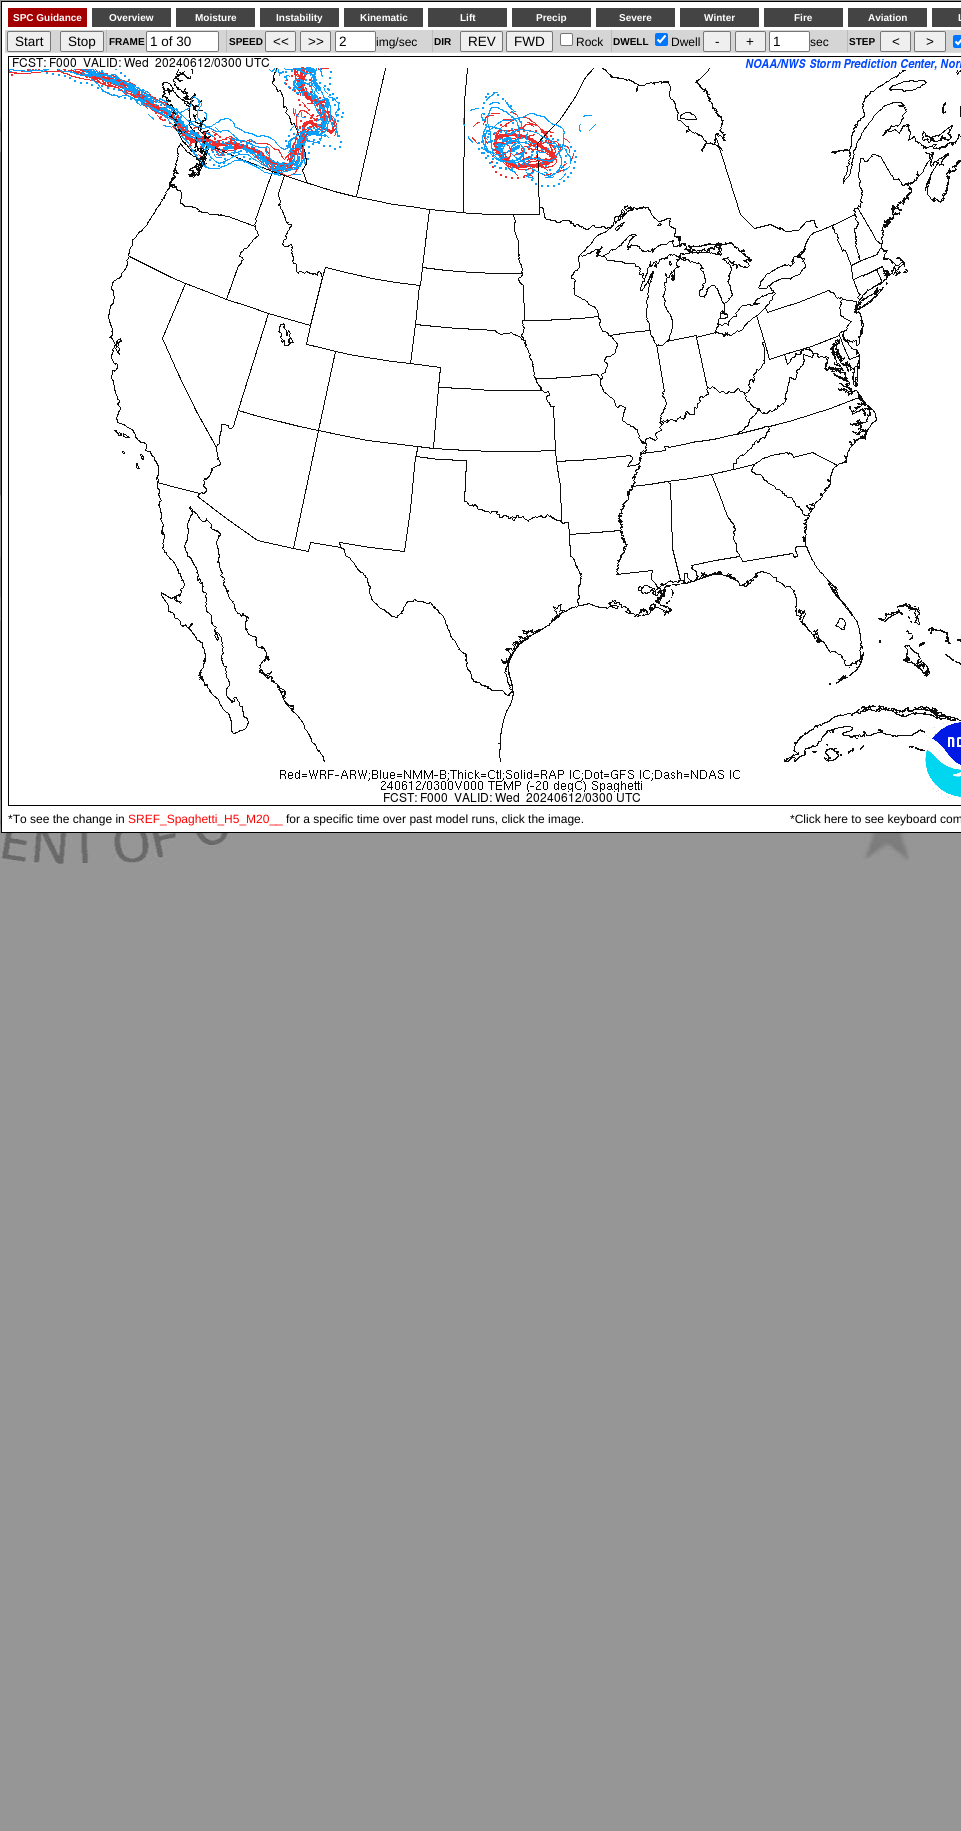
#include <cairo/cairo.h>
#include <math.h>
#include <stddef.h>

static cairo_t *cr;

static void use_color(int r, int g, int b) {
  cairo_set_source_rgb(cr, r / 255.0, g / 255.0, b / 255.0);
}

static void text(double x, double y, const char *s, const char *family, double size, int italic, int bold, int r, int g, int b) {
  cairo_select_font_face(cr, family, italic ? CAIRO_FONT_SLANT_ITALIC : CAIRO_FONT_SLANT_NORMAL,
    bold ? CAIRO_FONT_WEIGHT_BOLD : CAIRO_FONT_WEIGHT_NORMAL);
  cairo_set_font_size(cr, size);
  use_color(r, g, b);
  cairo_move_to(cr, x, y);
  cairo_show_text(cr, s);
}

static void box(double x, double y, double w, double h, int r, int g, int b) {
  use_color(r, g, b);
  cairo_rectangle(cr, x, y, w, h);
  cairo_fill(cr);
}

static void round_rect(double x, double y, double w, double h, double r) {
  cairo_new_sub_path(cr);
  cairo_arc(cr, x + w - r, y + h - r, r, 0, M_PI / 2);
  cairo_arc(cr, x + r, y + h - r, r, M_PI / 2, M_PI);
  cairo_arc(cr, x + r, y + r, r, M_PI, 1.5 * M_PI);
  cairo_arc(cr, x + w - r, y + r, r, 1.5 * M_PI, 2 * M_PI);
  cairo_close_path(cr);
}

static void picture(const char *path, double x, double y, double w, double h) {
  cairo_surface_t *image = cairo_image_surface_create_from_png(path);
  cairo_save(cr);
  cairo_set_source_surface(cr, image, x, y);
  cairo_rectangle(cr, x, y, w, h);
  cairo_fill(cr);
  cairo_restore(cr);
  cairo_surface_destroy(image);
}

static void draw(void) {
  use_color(150, 150, 150);
  cairo_paint(cr);
  picture("img_01.png", 0, 80, 961, 784);
  use_color(255, 255, 255);
  cairo_rectangle(cr, 1.5, 1.5, 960, 831);
  cairo_fill_preserve(cr);
  use_color(0, 0, 0);
  cairo_set_line_width(cr, 1);
  cairo_stroke(cr);
  box(8, 8, 79, 19, 162, 0, 0);
  box(92, 8, 79, 19, 68, 68, 68);
  box(176, 8, 79, 19, 68, 68, 68);
  box(260, 8, 79, 19, 68, 68, 68);
  box(344, 8, 79, 19, 68, 68, 68);
  box(428, 8, 79, 19, 68, 68, 68);
  box(512, 8, 79, 19, 68, 68, 68);
  box(596, 8, 79, 19, 68, 68, 68);
  box(680, 8, 79, 19, 68, 68, 68);
  box(764, 8, 79, 19, 68, 68, 68);
  box(848, 8, 79, 19, 68, 68, 68);
  box(932, 8, 29, 19, 68, 68, 68);
  box(5, 30, 956, 22, 213, 213, 213);
  box(5, 52, 956, 1, 221, 221, 221);
  use_color(239, 239, 239);
  round_rect(7.5, 31.5, 43, 20, 1.5);
  cairo_fill_preserve(cr);
  use_color(118, 118, 118);
  cairo_stroke(cr);
  use_color(239, 239, 239);
  round_rect(60.5, 31.5, 43, 20, 1.5);
  cairo_fill_preserve(cr);
  use_color(118, 118, 118);
  cairo_stroke(cr);
  box(106, 30, 1, 22, 187, 187, 187);
  use_color(255, 255, 255);
  round_rect(146.5, 31.5, 72, 20, 1.5);
  cairo_fill_preserve(cr);
  use_color(118, 118, 118);
  cairo_stroke(cr);
  box(226, 30, 1, 22, 187, 187, 187);
  use_color(239, 239, 239);
  round_rect(265.5, 31.5, 30, 20, 1.5);
  cairo_fill_preserve(cr);
  use_color(118, 118, 118);
  cairo_stroke(cr);
  use_color(239, 239, 239);
  round_rect(300.5, 31.5, 30, 20, 1.5);
  cairo_fill_preserve(cr);
  use_color(118, 118, 118);
  cairo_stroke(cr);
  use_color(255, 255, 255);
  round_rect(335.5, 31.5, 40, 20, 1.5);
  cairo_fill_preserve(cr);
  use_color(118, 118, 118);
  cairo_stroke(cr);
  box(432, 30, 1, 22, 187, 187, 187);
  use_color(239, 239, 239);
  round_rect(460.5, 31.5, 42, 20, 1.5);
  cairo_fill_preserve(cr);
  use_color(118, 118, 118);
  cairo_stroke(cr);
  use_color(239, 239, 239);
  round_rect(506.5, 31.5, 46, 20, 1.5);
  cairo_fill_preserve(cr);
  use_color(118, 118, 118);
  cairo_stroke(cr);
  use_color(255, 255, 255);
  round_rect(560.5, 33.5, 12, 12, 1.5);
  cairo_fill_preserve(cr);
  use_color(118, 118, 118);
  cairo_stroke(cr);
  box(611, 30, 1, 22, 187, 187, 187);
  use_color(0, 117, 255);
  round_rect(655, 33, 13, 13, 2);
  cairo_fill(cr);
  cairo_new_path(cr);
  cairo_move_to(cr, 657.5, 39.5);
  cairo_line_to(cr, 660, 42);
  cairo_line_to(cr, 665.5, 35.5);
  use_color(255, 255, 255);
  cairo_set_line_width(cr, 2.1);
  cairo_stroke(cr);
  use_color(239, 239, 239);
  round_rect(703.5, 31.5, 27, 20, 1.5);
  cairo_fill_preserve(cr);
  use_color(118, 118, 118);
  cairo_set_line_width(cr, 1);
  cairo_stroke(cr);
  use_color(239, 239, 239);
  round_rect(735.5, 31.5, 30, 20, 1.5);
  cairo_fill_preserve(cr);
  use_color(118, 118, 118);
  cairo_stroke(cr);
  use_color(255, 255, 255);
  round_rect(769.5, 31.5, 40, 20, 1.5);
  cairo_fill_preserve(cr);
  use_color(118, 118, 118);
  cairo_stroke(cr);
  box(847, 30, 1, 22, 187, 187, 187);
  use_color(239, 239, 239);
  round_rect(880.5, 31.5, 30, 20, 1.5);
  cairo_fill_preserve(cr);
  use_color(118, 118, 118);
  cairo_stroke(cr);
  use_color(239, 239, 239);
  round_rect(914.5, 31.5, 31, 20, 1.5);
  cairo_fill_preserve(cr);
  use_color(118, 118, 118);
  cairo_stroke(cr);
  use_color(0, 117, 255);
  round_rect(953, 35, 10, 13, 2);
  cairo_fill(cr);
  cairo_new_path(cr);
  cairo_move_to(cr, 955.5, 41.5);
  cairo_line_to(cr, 958, 44);
  cairo_line_to(cr, 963.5, 37.5);
  use_color(255, 255, 255);
  cairo_set_line_width(cr, 2.1);
  cairo_stroke(cr);
  picture("img_02.png", 8, 56, 953, 750);
  text(13, 21, "SPC Guidance", "Liberation Sans", 10, 0, 1, 255, 255, 255);
  text(109, 21, "Overview", "Liberation Sans", 10, 0, 1, 255, 255, 255);
  text(195, 21, "Moisture", "Liberation Sans", 10, 0, 1, 255, 255, 255);
  text(276, 21, "Instability", "Liberation Sans", 10, 0, 1, 255, 255, 255);
  text(360, 21, "Kinematic", "Liberation Sans", 10, 0, 1, 255, 255, 255);
  text(460, 21, "Lift", "Liberation Sans", 10, 0, 1, 255, 255, 255);
  text(536, 21, "Precip", "Liberation Sans", 10, 0, 1, 255, 255, 255);
  text(619, 21, "Severe", "Liberation Sans", 10, 0, 1, 255, 255, 255);
  text(704, 21, "Winter", "Liberation Sans", 10, 0, 1, 255, 255, 255);
  text(794, 21, "Fire", "Liberation Sans", 10, 0, 1, 255, 255, 255);
  text(868, 21, "Aviation", "Liberation Sans", 10, 0, 1, 255, 255, 255);
  text(958, 21, "L", "Liberation Sans", 10, 0, 1, 255, 255, 255);
  text(15, 46, "Start", "Liberation Sans", 13.5, 0, 0, 0, 0, 0);
  text(68, 46, "Stop", "Liberation Sans", 13.5, 0, 0, 0, 0, 0);
  text(109, 45, "FRAME", "Liberation Sans", 10, 0, 1, 0, 0, 0);
  text(150, 46, "1 of 30", "Liberation Sans", 13.5, 0, 0, 0, 0, 0);
  text(229, 45, "SPEED", "Liberation Sans", 10, 0, 1, 0, 0, 0);
  text(273, 46, "<<", "Liberation Sans", 13.5, 0, 0, 0, 0, 0);
  text(308, 46, ">>", "Liberation Sans", 13.5, 0, 0, 0, 0, 0);
  text(339, 46, "2", "Liberation Sans", 13.5, 0, 0, 0, 0, 0);
  text(376, 46, "img/sec", "Liberation Sans", 12, 0, 0, 0, 0, 0);
  text(434, 45, "DIR", "Liberation Sans", 10, 0, 1, 0, 0, 0);
  text(468, 46, "REV", "Liberation Sans", 13.5, 0, 0, 0, 0, 0);
  text(514, 46, "FWD", "Liberation Sans", 13.5, 0, 0, 0, 0, 0);
  text(576, 46, "Rock", "Liberation Sans", 12, 0, 0, 0, 0, 0);
  text(613, 45, "DWELL", "Liberation Sans", 10, 0, 1, 0, 0, 0);
  text(671, 46, "Dwell", "Liberation Sans", 12, 0, 0, 0, 0, 0);
  text(715, 46, "-", "Liberation Sans", 13.5, 0, 0, 0, 0, 0);
  text(746, 46, "+", "Liberation Sans", 13.5, 0, 0, 0, 0, 0);
  text(773, 46, "1", "Liberation Sans", 13.5, 0, 0, 0, 0, 0);
  text(810, 46, "sec", "Liberation Sans", 12, 0, 0, 0, 0, 0);
  text(849, 45, "STEP", "Liberation Sans", 10, 0, 1, 0, 0, 0);
  text(892, 46, "<", "Liberation Sans", 13.5, 0, 0, 0, 0, 0);
  text(926, 46, ">", "Liberation Sans", 13.5, 0, 0, 0, 0, 0);
  text(8, 823, "*To see the change in", "Liberation Sans", 12, 0, 0, 0, 0, 0);
  text(128, 823, "SREF_Spaghetti_H5_M20__", "Liberation Sans", 12, 0, 0, 255, 0, 0);
  text(286, 823, "for a specific time over past model runs, click the image.", "Liberation Sans", 12, 0, 0, 0, 0, 0);
  text(790, 823, "*Click here to see keyboard com", "Liberation Sans", 12, 0, 0, 0, 0, 0);
}

int main(void) {
  cairo_surface_t *surface = cairo_image_surface_create(CAIRO_FORMAT_RGB24, 961, 1831);
  cr = cairo_create(surface);
  cairo_font_options_t *options = cairo_font_options_create();
  cairo_font_options_set_hint_metrics(options, CAIRO_HINT_METRICS_OFF);
  cairo_font_options_set_hint_style(options, CAIRO_HINT_STYLE_NONE);
  cairo_set_font_options(cr, options);
  cairo_set_miter_limit(cr, 4);
  draw();
  cairo_surface_write_to_png(surface, "out.png");
  cairo_font_options_destroy(options);
  cairo_destroy(cr);
  cairo_surface_destroy(surface);
  return 0;
}
